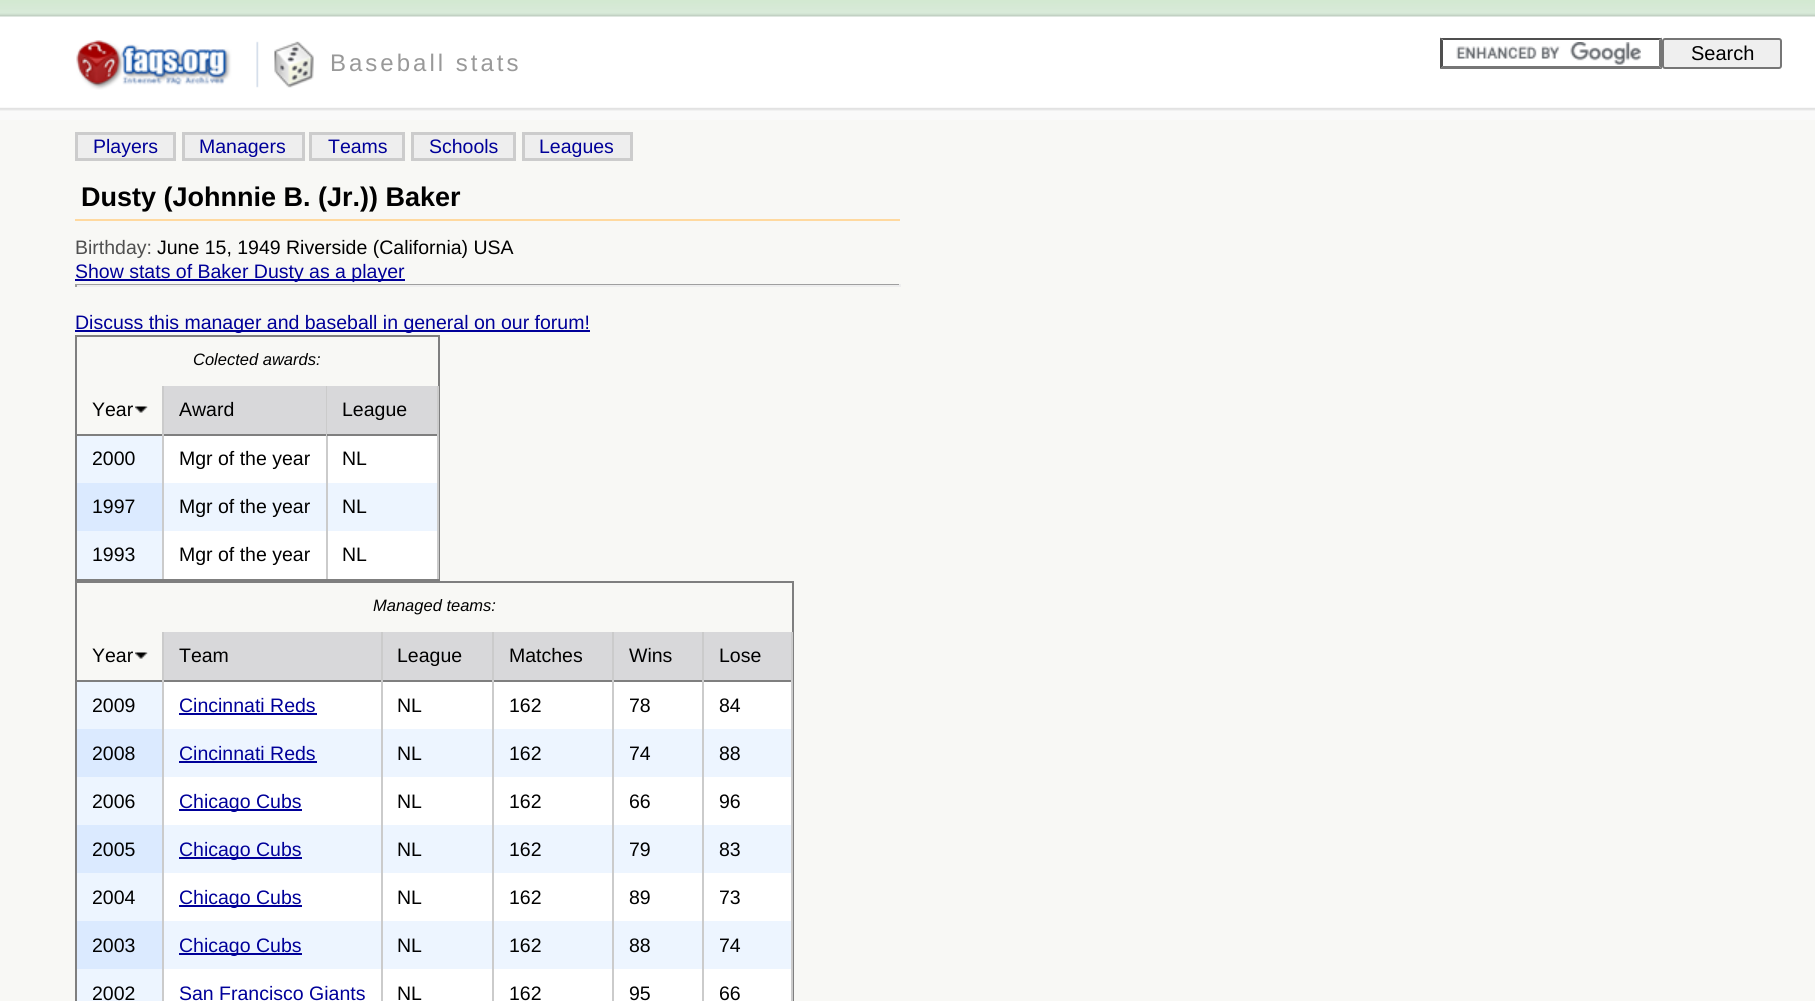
#include <cairo/cairo.h>
#include <math.h>
#include <stddef.h>

static cairo_t *cr;

static void use_color(int r, int g, int b) {
  cairo_set_source_rgb(cr, r / 255.0, g / 255.0, b / 255.0);
}

static void text(double x, double y, const char *s, const char *family, double size, int italic, int bold, int r, int g, int b) {
  cairo_select_font_face(cr, family, italic ? CAIRO_FONT_SLANT_ITALIC : CAIRO_FONT_SLANT_NORMAL,
    bold ? CAIRO_FONT_WEIGHT_BOLD : CAIRO_FONT_WEIGHT_NORMAL);
  cairo_set_font_size(cr, size);
  use_color(r, g, b);
  cairo_move_to(cr, x, y);
  cairo_show_text(cr, s);
}

static void spaced_text(double x, double y, const char *s, double letter, double word) {
  cairo_move_to(cr, x, y);
  while (*s) {
    char ch[5] = {0};
    int n = 0;
    do ch[n++] = *s++; while ((*s & 0xC0) == 0x80);
    cairo_show_text(cr, ch);
    cairo_rel_move_to(cr, letter + word * (*ch == ' '), 0);
  }
}

static void box(double x, double y, double w, double h, int r, int g, int b) {
  use_color(r, g, b);
  cairo_rectangle(cr, x, y, w, h);
  cairo_fill(cr);
}

static void round_rect(double x, double y, double w, double h, double r) {
  cairo_new_sub_path(cr);
  cairo_arc(cr, x + w - r, y + h - r, r, 0, M_PI / 2);
  cairo_arc(cr, x + r, y + h - r, r, M_PI / 2, M_PI);
  cairo_arc(cr, x + r, y + r, r, M_PI, 1.5 * M_PI);
  cairo_arc(cr, x + w - r, y + r, r, 1.5 * M_PI, 2 * M_PI);
  cairo_close_path(cr);
}

static void picture(const char *path, double x, double y, double w, double h) {
  cairo_surface_t *image = cairo_image_surface_create_from_png(path);
  cairo_save(cr);
  cairo_set_source_surface(cr, image, x, y);
  cairo_rectangle(cr, x, y, w, h);
  cairo_fill(cr);
  cairo_restore(cr);
  cairo_surface_destroy(image);
}

static void draw(void) {
  use_color(248, 248, 245);
  cairo_paint(cr);
  box(0, 111, 1815, 9, 250, 250, 250);
  picture("img_01.png", 0, 0, 1815, 111);
  picture("img_02.png", 76, 40, 238, 50);
  picture("img_03.png", 1456, 42, 185, 23);
  use_color(79, 79, 79);
  cairo_new_path(cr);
  cairo_move_to(cr, 1440, 38);
  cairo_line_to(cr, 1662, 38);
  cairo_line_to(cr, 1659, 40);
  cairo_line_to(cr, 1443, 40);
  cairo_close_path(cr);
  cairo_fill(cr);
  use_color(118, 118, 118);
  cairo_new_path(cr);
  cairo_move_to(cr, 1662, 37.5);
  cairo_line_to(cr, 1662, 69);
  cairo_line_to(cr, 1659, 66);
  cairo_line_to(cr, 1659, 40.5);
  cairo_close_path(cr);
  cairo_fill(cr);
  cairo_new_path(cr);
  cairo_move_to(cr, 1662, 69);
  cairo_line_to(cr, 1440, 69);
  cairo_line_to(cr, 1443, 66);
  cairo_line_to(cr, 1659, 66);
  cairo_close_path(cr);
  cairo_fill(cr);
  use_color(79, 79, 79);
  cairo_new_path(cr);
  cairo_move_to(cr, 1440, 69);
  cairo_line_to(cr, 1440, 37.5);
  cairo_line_to(cr, 1443, 40.5);
  cairo_line_to(cr, 1443, 66);
  cairo_close_path(cr);
  cairo_fill(cr);
  use_color(239, 239, 239);
  round_rect(1663, 39, 118, 29, 2);
  cairo_fill_preserve(cr);
  use_color(118, 118, 118);
  cairo_stroke(cr);
  use_color(238, 238, 238);
  cairo_rectangle(cr, 76.5, 133.5, 98, 26);
  cairo_fill_preserve(cr);
  use_color(204, 204, 204);
  cairo_set_line_width(cr, 3);
  cairo_stroke(cr);
  use_color(238, 238, 238);
  cairo_rectangle(cr, 183.5, 133.5, 120, 26);
  cairo_fill_preserve(cr);
  use_color(204, 204, 204);
  cairo_stroke(cr);
  use_color(238, 238, 238);
  cairo_rectangle(cr, 310.5, 133.5, 93, 26);
  cairo_fill_preserve(cr);
  use_color(204, 204, 204);
  cairo_stroke(cr);
  use_color(238, 238, 238);
  cairo_rectangle(cr, 412.5, 133.5, 102, 26);
  cairo_fill_preserve(cr);
  use_color(204, 204, 204);
  cairo_stroke(cr);
  use_color(238, 238, 238);
  cairo_rectangle(cr, 523.5, 133.5, 108, 26);
  cairo_fill_preserve(cr);
  use_color(204, 204, 204);
  cairo_stroke(cr);
  box(75, 219, 825, 2, 255, 217, 159);
  box(75, 279, 330, 2, 0, 0, 153);
  box(75, 284, 825, 1, 159, 159, 159);
  box(899, 284, 2, 3, 238, 238, 238);
  box(75, 285, 825, 2, 238, 238, 238);
  box(75, 284, 2, 3, 159, 159, 159);
  box(75, 330, 515, 2, 0, 0, 153);
  cairo_rectangle(cr, 76, 336, 363, 244);
  use_color(127, 127, 127);
  cairo_set_line_width(cr, 2);
  cairo_stroke(cr);
  box(162, 386, 2, 48, 203, 203, 203);
  picture("img_04.png", 135, 406, 13, 7);
  box(164, 386, 162, 48, 216, 216, 218);
  box(326, 386, 1, 48, 203, 203, 203);
  box(327, 386, 110, 48, 216, 216, 218);
  box(437, 386, 2, 48, 203, 203, 203);
  box(164, 436, 273, 47, 255, 255, 255);
  box(77, 436, 85, 47, 237, 245, 255);
  box(77, 434, 250, 2, 127, 127, 127);
  box(162, 434, 2, 145, 203, 203, 203);
  box(326, 434, 2, 49, 203, 203, 203);
  box(327, 434, 111, 2, 127, 127, 127);
  box(437, 434, 2, 145, 203, 203, 203);
  box(164, 483, 273, 48, 237, 245, 255);
  box(77, 483, 85, 48, 219, 234, 255);
  box(326, 483, 2, 48, 203, 203, 203);
  box(164, 531, 273, 48, 255, 255, 255);
  box(77, 531, 85, 48, 237, 245, 255);
  box(326, 531, 2, 48, 203, 203, 203);
  cairo_rectangle(cr, 76, 582, 717, 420);
  use_color(127, 127, 127);
  cairo_stroke(cr);
  box(162, 632, 2, 48, 203, 203, 203);
  picture("img_04.png", 135, 652, 13, 7);
  box(164, 632, 217, 48, 216, 216, 218);
  box(381, 632, 2, 48, 203, 203, 203);
  box(383, 632, 109, 48, 216, 216, 218);
  box(492, 632, 2, 48, 203, 203, 203);
  box(494, 632, 118, 48, 216, 216, 218);
  box(612, 632, 2, 48, 203, 203, 203);
  box(614, 632, 88, 48, 216, 216, 218);
  box(702, 632, 2, 48, 203, 203, 203);
  box(704, 632, 87, 48, 216, 216, 218);
  box(791, 632, 2, 48, 203, 203, 203);
  box(164, 682, 627, 47, 255, 255, 255);
  box(77, 682, 85, 47, 237, 245, 255);
  box(77, 680, 715, 2, 127, 127, 127);
  box(162, 680, 2, 321, 203, 203, 203);
  box(381, 680, 2, 49, 203, 203, 203);
  box(179, 713, 138, 2, 0, 0, 153);
  box(492, 680, 2, 49, 203, 203, 203);
  box(612, 680, 2, 49, 203, 203, 203);
  box(702, 680, 2, 49, 203, 203, 203);
  box(791, 680, 2, 321, 203, 203, 203);
  box(164, 729, 627, 48, 237, 245, 255);
  box(77, 729, 85, 48, 219, 234, 255);
  box(381, 729, 2, 48, 203, 203, 203);
  box(179, 761, 138, 2, 0, 0, 153);
  box(492, 729, 2, 48, 203, 203, 203);
  box(612, 729, 2, 48, 203, 203, 203);
  box(702, 729, 2, 48, 203, 203, 203);
  box(164, 777, 627, 48, 255, 255, 255);
  box(77, 777, 85, 48, 237, 245, 255);
  box(381, 777, 2, 48, 203, 203, 203);
  box(179, 809, 123, 2, 0, 0, 153);
  box(492, 777, 2, 48, 203, 203, 203);
  box(612, 777, 2, 48, 203, 203, 203);
  box(702, 777, 2, 48, 203, 203, 203);
  box(164, 825, 627, 48, 237, 245, 255);
  box(77, 825, 85, 48, 219, 234, 255);
  box(381, 825, 2, 48, 203, 203, 203);
  box(179, 857, 123, 2, 0, 0, 153);
  box(492, 825, 2, 48, 203, 203, 203);
  box(612, 825, 2, 48, 203, 203, 203);
  box(702, 825, 2, 48, 203, 203, 203);
  box(164, 873, 627, 48, 255, 255, 255);
  box(77, 873, 85, 48, 237, 245, 255);
  box(381, 873, 2, 48, 203, 203, 203);
  box(179, 905, 123, 2, 0, 0, 153);
  box(492, 873, 2, 48, 203, 203, 203);
  box(612, 873, 2, 48, 203, 203, 203);
  box(702, 873, 2, 48, 203, 203, 203);
  box(164, 921, 627, 48, 237, 245, 255);
  box(77, 921, 85, 48, 219, 234, 255);
  box(381, 921, 2, 48, 203, 203, 203);
  box(179, 953, 123, 2, 0, 0, 153);
  box(492, 921, 2, 48, 203, 203, 203);
  box(612, 921, 2, 48, 203, 203, 203);
  box(702, 921, 2, 48, 203, 203, 203);
  box(164, 969, 627, 32, 255, 255, 255);
  box(77, 969, 85, 32, 237, 245, 255);
  box(381, 969, 2, 32, 203, 203, 203);
  box(492, 969, 2, 32, 203, 203, 203);
  box(612, 969, 2, 32, 203, 203, 203);
  box(702, 969, 2, 32, 203, 203, 203);
  cairo_select_font_face(cr, "Liberation Sans", CAIRO_FONT_SLANT_NORMAL, CAIRO_FONT_WEIGHT_NORMAL);
  cairo_set_font_size(cr, 24);
  use_color(153, 153, 153);
  spaced_text(330, 71, "Baseball stats", 3, 0);
  text(1691, 60, "Search", "Liberation Sans", 20, 0, 0, 0, 0, 0);
  text(93, 153, "Players", "Liberation Sans", 19.5, 0, 0, 0, 0, 153);
  text(199, 153, "Managers", "Liberation Sans", 19.5, 0, 0, 0, 0, 153);
  text(328, 153, "Teams", "Liberation Sans", 19.5, 0, 0, 0, 0, 153);
  text(429, 153, "Schools", "Liberation Sans", 19.5, 0, 0, 0, 0, 153);
  text(539, 153, "Leagues", "Liberation Sans", 19.5, 0, 0, 0, 0, 153);
  text(81, 206, "Dusty (Johnnie B. (Jr.)) Baker", "Liberation Sans", 27, 0, 1, 0, 0, 0);
  text(75, 254, "Birthday:", "Liberation Sans", 19.5, 0, 0, 80, 80, 80);
  text(157, 254, "June 15, 1949 Riverside (California) USA", "Liberation Sans", 19.5, 0, 0, 0, 0, 0);
  text(75, 278, "Show stats of Baker Dusty as a player", "Liberation Sans", 19.5, 0, 0, 0, 0, 153);
  text(75, 329, "Discuss this manager and baseball in general on our forum!", "Liberation Sans", 19.5, 0, 0, 0, 0, 153);
  text(193, 365, "Colected awards:", "Liberation Sans", 16.5, 1, 0, 0, 0, 0);
  text(92, 416, "Year", "Liberation Sans", 19.5, 0, 0, 0, 0, 0);
  text(179, 416, "Award", "Liberation Sans", 19.5, 0, 0, 0, 0, 0);
  text(342, 416, "League", "Liberation Sans", 19.5, 0, 0, 0, 0, 0);
  text(92, 465, "2000", "Liberation Sans", 19.5, 0, 0, 0, 0, 0);
  text(179, 465, "Mgr of the year", "Liberation Sans", 19.5, 0, 0, 0, 0, 0);
  text(342, 465, "NL", "Liberation Sans", 19.5, 0, 0, 0, 0, 0);
  text(92, 513, "1997", "Liberation Sans", 19.5, 0, 0, 0, 0, 0);
  text(179, 513, "Mgr of the year", "Liberation Sans", 19.5, 0, 0, 0, 0, 0);
  text(342, 513, "NL", "Liberation Sans", 19.5, 0, 0, 0, 0, 0);
  text(92, 561, "1993", "Liberation Sans", 19.5, 0, 0, 0, 0, 0);
  text(179, 561, "Mgr of the year", "Liberation Sans", 19.5, 0, 0, 0, 0, 0);
  text(342, 561, "NL", "Liberation Sans", 19.5, 0, 0, 0, 0, 0);
  text(373, 611, "Managed teams:", "Liberation Sans", 16.5, 1, 0, 0, 0, 0);
  text(92, 662, "Year", "Liberation Sans", 19.5, 0, 0, 0, 0, 0);
  text(179, 662, "Team", "Liberation Sans", 19.5, 0, 0, 0, 0, 0);
  text(397, 662, "League", "Liberation Sans", 19.5, 0, 0, 0, 0, 0);
  text(509, 662, "Matches", "Liberation Sans", 19.5, 0, 0, 0, 0, 0);
  text(629, 662, "Wins", "Liberation Sans", 19.5, 0, 0, 0, 0, 0);
  text(719, 662, "Lose", "Liberation Sans", 19.5, 0, 0, 0, 0, 0);
  text(92, 712, "2009", "Liberation Sans", 19.5, 0, 0, 0, 0, 0);
  text(179, 712, "Cincinnati Reds", "Liberation Sans", 19.5, 0, 0, 0, 0, 153);
  text(397, 712, "NL", "Liberation Sans", 19.5, 0, 0, 0, 0, 0);
  text(509, 712, "162", "Liberation Sans", 19.5, 0, 0, 0, 0, 0);
  text(629, 712, "78", "Liberation Sans", 19.5, 0, 0, 0, 0, 0);
  text(719, 712, "84", "Liberation Sans", 19.5, 0, 0, 0, 0, 0);
  text(92, 760, "2008", "Liberation Sans", 19.5, 0, 0, 0, 0, 0);
  text(179, 760, "Cincinnati Reds", "Liberation Sans", 19.5, 0, 0, 0, 0, 153);
  text(397, 760, "NL", "Liberation Sans", 19.5, 0, 0, 0, 0, 0);
  text(509, 760, "162", "Liberation Sans", 19.5, 0, 0, 0, 0, 0);
  text(629, 760, "74", "Liberation Sans", 19.5, 0, 0, 0, 0, 0);
  text(719, 760, "88", "Liberation Sans", 19.5, 0, 0, 0, 0, 0);
  text(92, 808, "2006", "Liberation Sans", 19.5, 0, 0, 0, 0, 0);
  text(179, 808, "Chicago Cubs", "Liberation Sans", 19.5, 0, 0, 0, 0, 153);
  text(397, 808, "NL", "Liberation Sans", 19.5, 0, 0, 0, 0, 0);
  text(509, 808, "162", "Liberation Sans", 19.5, 0, 0, 0, 0, 0);
  text(629, 808, "66", "Liberation Sans", 19.5, 0, 0, 0, 0, 0);
  text(719, 808, "96", "Liberation Sans", 19.5, 0, 0, 0, 0, 0);
  text(92, 856, "2005", "Liberation Sans", 19.5, 0, 0, 0, 0, 0);
  text(179, 856, "Chicago Cubs", "Liberation Sans", 19.5, 0, 0, 0, 0, 153);
  text(397, 856, "NL", "Liberation Sans", 19.5, 0, 0, 0, 0, 0);
  text(509, 856, "162", "Liberation Sans", 19.5, 0, 0, 0, 0, 0);
  text(629, 856, "79", "Liberation Sans", 19.5, 0, 0, 0, 0, 0);
  text(719, 856, "83", "Liberation Sans", 19.5, 0, 0, 0, 0, 0);
  text(92, 904, "2004", "Liberation Sans", 19.5, 0, 0, 0, 0, 0);
  text(179, 904, "Chicago Cubs", "Liberation Sans", 19.5, 0, 0, 0, 0, 153);
  text(397, 904, "NL", "Liberation Sans", 19.5, 0, 0, 0, 0, 0);
  text(509, 904, "162", "Liberation Sans", 19.5, 0, 0, 0, 0, 0);
  text(629, 904, "89", "Liberation Sans", 19.5, 0, 0, 0, 0, 0);
  text(719, 904, "73", "Liberation Sans", 19.5, 0, 0, 0, 0, 0);
  text(92, 952, "2003", "Liberation Sans", 19.5, 0, 0, 0, 0, 0);
  text(179, 952, "Chicago Cubs", "Liberation Sans", 19.5, 0, 0, 0, 0, 153);
  text(397, 952, "NL", "Liberation Sans", 19.5, 0, 0, 0, 0, 0);
  text(509, 952, "162", "Liberation Sans", 19.5, 0, 0, 0, 0, 0);
  text(629, 952, "88", "Liberation Sans", 19.5, 0, 0, 0, 0, 0);
  text(719, 952, "74", "Liberation Sans", 19.5, 0, 0, 0, 0, 0);
  text(92, 1000, "2002", "Liberation Sans", 19.5, 0, 0, 0, 0, 0);
  text(179, 1000, "San Francisco Giants", "Liberation Sans", 19.5, 0, 0, 0, 0, 153);
  text(397, 1000, "NL", "Liberation Sans", 19.5, 0, 0, 0, 0, 0);
  text(509, 1000, "162", "Liberation Sans", 19.5, 0, 0, 0, 0, 0);
  text(629, 1000, "95", "Liberation Sans", 19.5, 0, 0, 0, 0, 0);
  text(719, 1000, "66", "Liberation Sans", 19.5, 0, 0, 0, 0, 0);
}

int main(void) {
  cairo_surface_t *surface = cairo_image_surface_create(CAIRO_FORMAT_RGB24, 1815, 1001);
  cr = cairo_create(surface);
  cairo_font_options_t *options = cairo_font_options_create();
  cairo_font_options_set_hint_metrics(options, CAIRO_HINT_METRICS_OFF);
  cairo_font_options_set_hint_style(options, CAIRO_HINT_STYLE_NONE);
  cairo_set_font_options(cr, options);
  cairo_set_miter_limit(cr, 4);
  draw();
  cairo_surface_write_to_png(surface, "out.png");
  cairo_font_options_destroy(options);
  cairo_destroy(cr);
  cairo_surface_destroy(surface);
  return 0;
}
